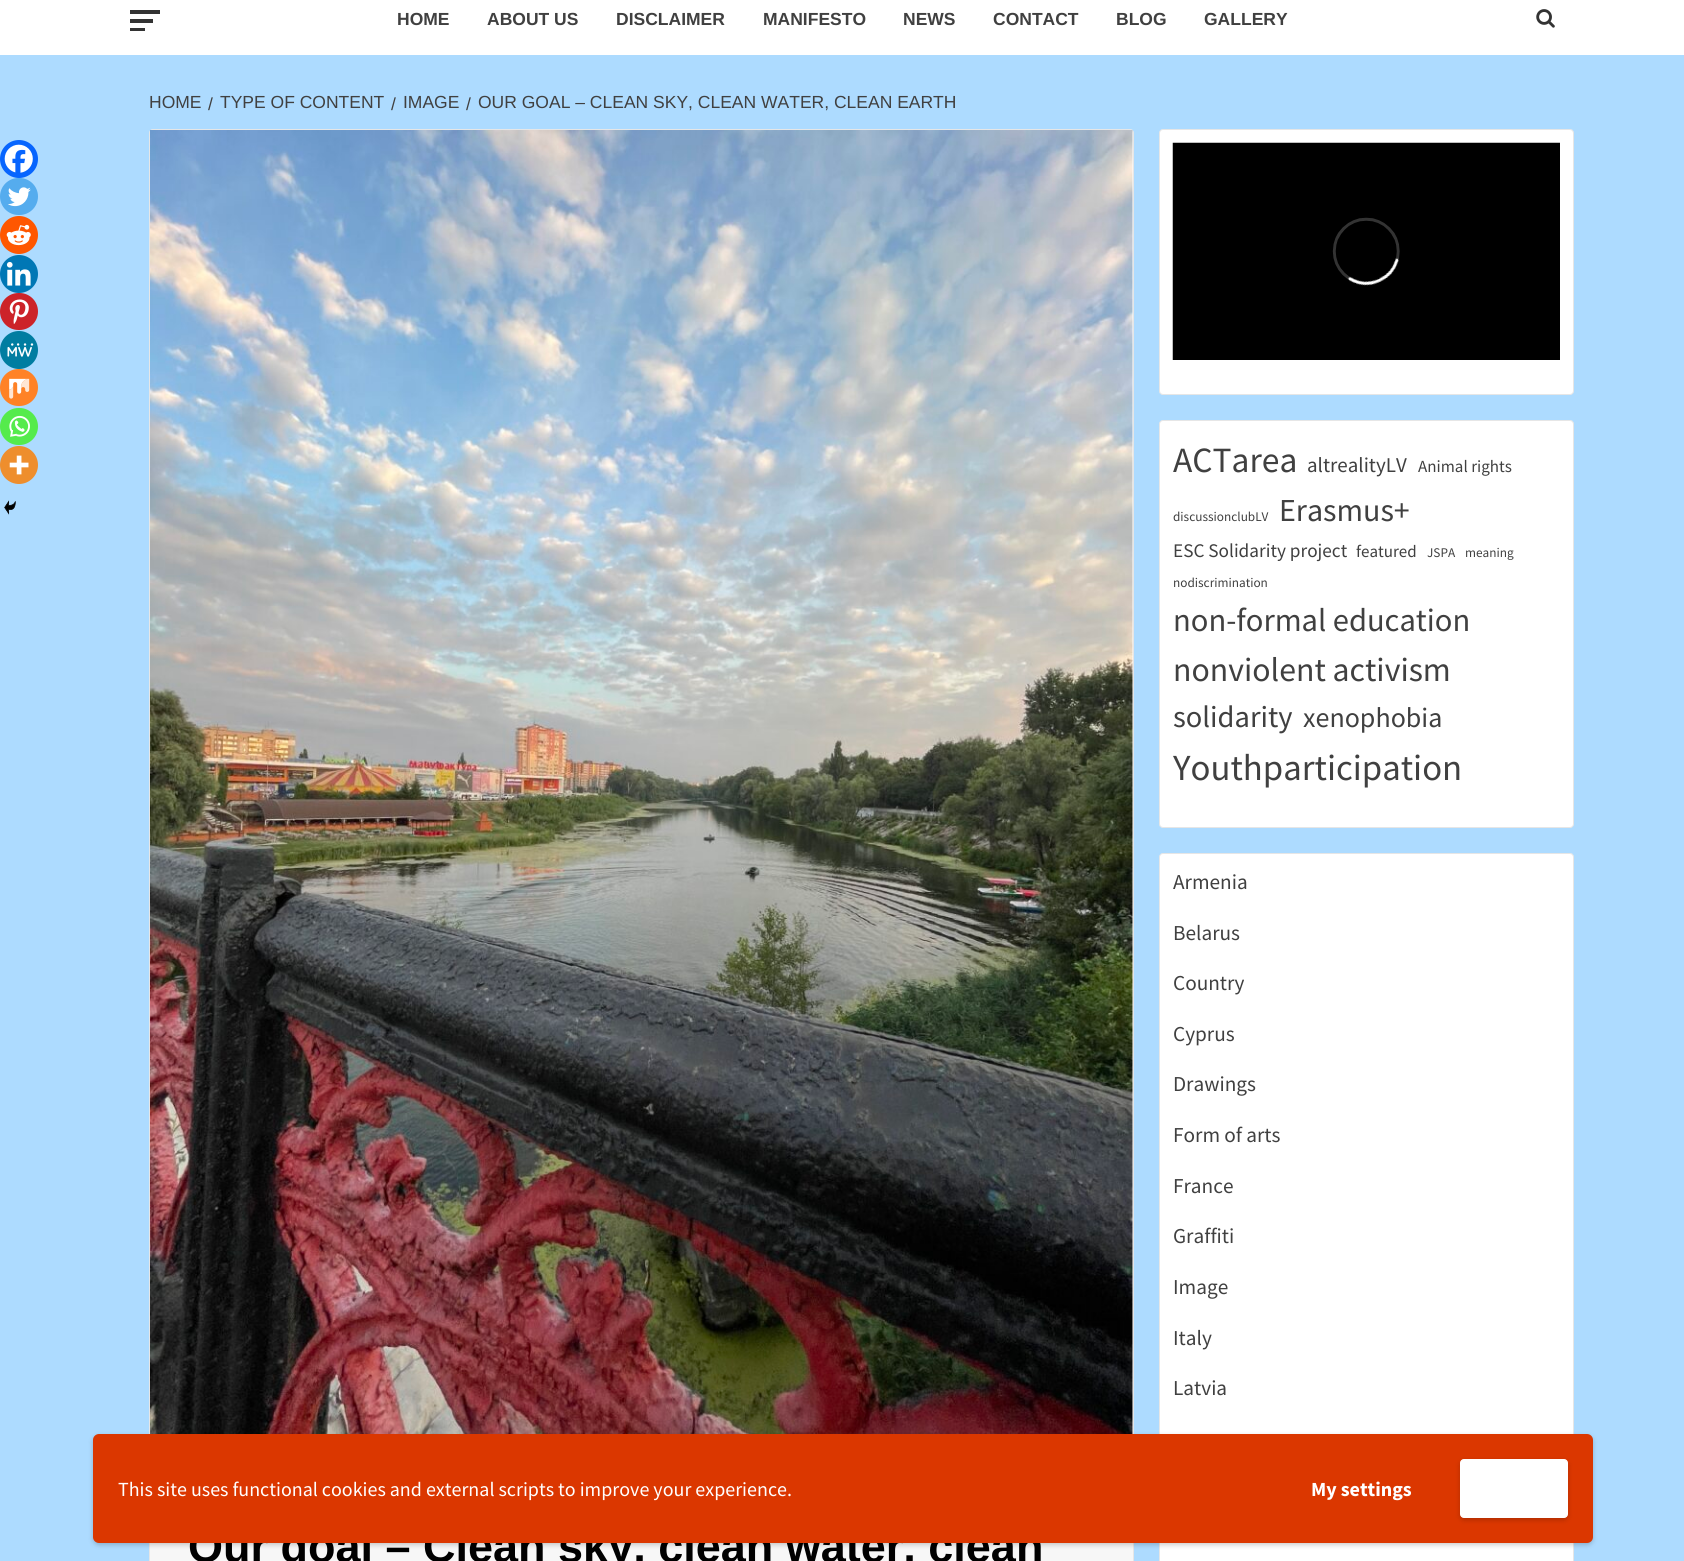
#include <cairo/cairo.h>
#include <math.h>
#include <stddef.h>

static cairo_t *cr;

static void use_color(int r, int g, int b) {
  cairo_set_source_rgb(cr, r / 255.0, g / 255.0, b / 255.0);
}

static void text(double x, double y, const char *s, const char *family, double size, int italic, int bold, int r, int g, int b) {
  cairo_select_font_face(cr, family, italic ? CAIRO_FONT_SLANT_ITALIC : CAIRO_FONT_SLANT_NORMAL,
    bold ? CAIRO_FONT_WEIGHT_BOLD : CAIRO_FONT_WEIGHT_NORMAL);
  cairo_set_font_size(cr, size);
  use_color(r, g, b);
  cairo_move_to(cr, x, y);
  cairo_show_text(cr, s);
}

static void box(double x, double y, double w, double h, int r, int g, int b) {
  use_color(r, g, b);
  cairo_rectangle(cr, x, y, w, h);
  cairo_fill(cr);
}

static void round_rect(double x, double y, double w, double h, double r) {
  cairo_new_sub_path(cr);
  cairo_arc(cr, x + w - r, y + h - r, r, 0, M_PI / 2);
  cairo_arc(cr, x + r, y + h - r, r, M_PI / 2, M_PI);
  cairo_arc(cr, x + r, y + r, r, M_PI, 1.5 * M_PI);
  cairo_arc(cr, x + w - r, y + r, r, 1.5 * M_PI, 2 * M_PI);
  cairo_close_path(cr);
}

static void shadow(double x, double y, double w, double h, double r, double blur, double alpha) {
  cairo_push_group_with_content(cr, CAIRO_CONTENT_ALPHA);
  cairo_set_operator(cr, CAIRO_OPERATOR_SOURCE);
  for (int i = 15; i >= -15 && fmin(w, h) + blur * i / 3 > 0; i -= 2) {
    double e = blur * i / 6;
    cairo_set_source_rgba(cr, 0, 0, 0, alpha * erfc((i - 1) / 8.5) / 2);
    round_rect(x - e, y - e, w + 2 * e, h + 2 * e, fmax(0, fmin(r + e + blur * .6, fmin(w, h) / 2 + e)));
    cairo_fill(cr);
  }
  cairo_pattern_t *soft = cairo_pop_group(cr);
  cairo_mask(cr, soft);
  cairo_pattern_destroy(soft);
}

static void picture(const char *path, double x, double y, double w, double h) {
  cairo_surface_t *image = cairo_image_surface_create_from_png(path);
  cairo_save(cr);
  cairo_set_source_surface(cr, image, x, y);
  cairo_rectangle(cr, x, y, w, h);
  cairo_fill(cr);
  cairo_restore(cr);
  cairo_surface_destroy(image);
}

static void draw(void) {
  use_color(173, 219, 255);
  cairo_paint(cr);
  box(0, 0, 1684, 55, 255, 255, 255);
  box(130, 10, 30, 4, 51, 51, 51);
  box(130, 19, 23, 4, 51, 51, 51);
  box(130, 28, 15, 3, 51, 51, 51);
  picture("img_01.png", 1536, 9, 19, 19);
  use_color(255, 255, 255);
  round_rect(1159, 129, 415, 266, 4);
  cairo_fill(cr);
  round_rect(1159.5, 129.5, 414, 265, 3.5);
  cairo_set_source_rgba(cr, 0, 0.004, 0.004, 0.1);
  cairo_set_line_width(cr, 1);
  cairo_stroke(cr);
  picture("img_02.png", 1172, 142, 388, 218);
  use_color(255, 255, 255);
  round_rect(1159, 420, 415, 408, 4);
  cairo_fill(cr);
  round_rect(1159.5, 420.5, 414, 407, 3.5);
  cairo_set_source_rgba(cr, 0, 0.004, 0.004, 0.1);
  cairo_stroke(cr);
  use_color(255, 255, 255);
  round_rect(1159, 853, 415, 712, 4);
  cairo_fill(cr);
  round_rect(1159.5, 853.5, 414, 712, 3.5);
  cairo_set_source_rgba(cr, 0, 0.004, 0.004, 0.1);
  cairo_stroke(cr);
  use_color(255, 255, 255);
  round_rect(149, 129, 985, 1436, 4);
  cairo_fill(cr);
  round_rect(149.5, 129.5, 984, 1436, 3.5);
  cairo_set_source_rgba(cr, 0, 0.004, 0.004, 0.1);
  cairo_stroke(cr);
  use_color(7, 101, 254);
  cairo_arc(cr, 19, 159, 19, 0, 2 * M_PI);
  cairo_fill(cr);
  picture("img_03.png", 4, 144, 29, 29);
  use_color(85, 172, 238);
  round_rect(0, 178, 38, 37, 18.5);
  cairo_fill(cr);
  picture("img_04.png", 8, 187, 23, 20);
  use_color(255, 87, 0);
  cairo_arc(cr, 19, 235, 19, 0, 2 * M_PI);
  cairo_fill(cr);
  picture("img_05.png", 6, 224, 25, 22);
  use_color(0, 119, 181);
  cairo_arc(cr, 19, 274, 19, 0, 2 * M_PI);
  cairo_fill(cr);
  picture("img_06.png", 6, 261, 25, 25);
  use_color(204, 35, 41);
  round_rect(0, 293, 38, 37, 18.5);
  cairo_fill(cr);
  picture("img_07.png", 9, 299, 20, 25);
  use_color(0, 125, 161);
  cairo_arc(cr, 19, 350, 19, 0, 2 * M_PI);
  cairo_fill(cr);
  picture("img_08.png", 7, 343, 27, 14);
  use_color(255, 130, 38);
  round_rect(0, 369, 38, 37, 18.5);
  cairo_fill(cr);
  picture("img_09.png", 9, 378, 21, 21);
  use_color(85, 235, 76);
  round_rect(0, 408, 38, 37, 18.5);
  cairo_fill(cr);
  picture("img_10.png", 9, 415, 21, 22);
  use_color(238, 142, 45);
  cairo_arc(cr, 19, 465, 19, 0, 2 * M_PI);
  cairo_fill(cr);
  picture("img_11.png", 9, 455, 20, 20);
  picture("img_12.png", 4, 500, 12, 15);
  picture("img_13.png", 150, 130, 983, 1304);
  box(150, 1543, 983, 18, 247, 247, 247);
  use_color(0, 0, 0);
  shadow(93, 1436, 1500, 109, 6, 2.5, 0.2);
  text(397, 25, "HOME", "Liberation Sans", 17.5, 0, 1, 64, 64, 64);
  text(487, 25, "ABOUT US", "Liberation Sans", 17.5, 0, 1, 64, 64, 64);
  text(616, 25, "DISCLAIMER", "Liberation Sans", 17.5, 0, 1, 64, 64, 64);
  text(763, 25, "MANIFESTO", "Liberation Sans", 17.5, 0, 1, 64, 64, 64);
  text(903, 25, "NEWS", "Liberation Sans", 17.5, 0, 1, 64, 64, 64);
  text(993, 25, "CONTACT", "Liberation Sans", 17.5, 0, 1, 64, 64, 64);
  text(1116, 25, "BLOG", "Liberation Sans", 17.5, 0, 1, 64, 64, 64);
  text(1204, 25, "GALLERY", "Liberation Sans", 17.5, 0, 1, 64, 64, 64);
  text(149, 108, "HOME", "Liberation Sans", 17.5, 0, 0, 64, 64, 64);
  text(208, 110, "/", "Liberation Sans", 17.5, 0, 0, 64, 64, 64);
  text(220, 108, "TYPE OF CONTENT", "Liberation Sans", 17.5, 0, 0, 64, 64, 64);
  text(391, 110, "/", "Liberation Sans", 17.5, 0, 0, 64, 64, 64);
  text(403, 108, "IMAGE", "Liberation Sans", 17.5, 0, 0, 64, 64, 64);
  text(466, 110, "/", "Liberation Sans", 17.5, 0, 0, 64, 64, 64);
  text(478, 108, "OUR GOAL – CLEAN SKY, CLEAN WATER, CLEAN EARTH", "Liberation Sans", 17.5, 0, 0, 64, 64, 64);
  text(1173, 472, "ACTarea", "Source Sans Pro", 35.5, 0, 0, 64, 64, 64);
  text(1307, 472, "altrealityLV", "Source Sans Pro", 21, 0, 0, 64, 64, 64);
  text(1418, 472, "Animal rights", "Source Sans Pro", 17, 0, 0, 64, 64, 64);
  text(1173, 521, "discussionclubLV", "Source Sans Pro", 13.25, 0, 0, 64, 64, 64);
  text(1279, 521, "Erasmus+", "Source Sans Pro", 32, 0, 0, 64, 64, 64);
  text(1173, 557, "ESC Solidarity project", "Source Sans Pro", 19.25, 0, 0, 64, 64, 64);
  text(1356, 557, "featured", "Source Sans Pro", 17, 0, 0, 64, 64, 64);
  text(1427, 557, "JSPA", "Source Sans Pro", 13.25, 0, 0, 64, 64, 64);
  text(1465, 557, "meaning", "Source Sans Pro", 13.25, 0, 0, 64, 64, 64);
  text(1173, 587, "nodiscrimination", "Source Sans Pro", 13.25, 0, 0, 64, 64, 64);
  text(1173, 631, "non-formal education", "Source Sans Pro", 32.5, 0, 0, 64, 64, 64);
  text(1173, 681, "nonviolent activism", "Source Sans Pro", 33.75, 0, 0, 64, 64, 64);
  text(1173, 727, "solidarity", "Source Sans Pro", 30.5, 0, 0, 64, 64, 64);
  text(1303, 727, "xenophobia", "Source Sans Pro", 28, 0, 0, 64, 64, 64);
  text(1173, 780, "Youthparticipation", "Source Sans Pro", 36.75, 0, 0, 64, 64, 64);
  text(1173, 889, "Armenia", "Source Sans Pro", 21.25, 0, 0, 64, 64, 64);
  text(1173, 940, "Belarus", "Source Sans Pro", 21.25, 0, 0, 64, 64, 64);
  text(1173, 990, "Country", "Source Sans Pro", 21.25, 0, 0, 64, 64, 64);
  text(1173, 1041, "Cyprus", "Source Sans Pro", 21.25, 0, 0, 64, 64, 64);
  text(1173, 1091, "Drawings", "Source Sans Pro", 21.25, 0, 0, 64, 64, 64);
  text(1173, 1142, "Form of arts", "Source Sans Pro", 21.25, 0, 0, 64, 64, 64);
  text(1173, 1193, "France", "Source Sans Pro", 21.25, 0, 0, 64, 64, 64);
  text(1173, 1243, "Graffiti", "Source Sans Pro", 21.25, 0, 0, 64, 64, 64);
  text(1173, 1294, "Image", "Source Sans Pro", 21.25, 0, 0, 64, 64, 64);
  text(1173, 1345, "Italy", "Source Sans Pro", 21.25, 0, 0, 64, 64, 64);
  text(1173, 1395, "Latvia", "Source Sans Pro", 21.25, 0, 0, 64, 64, 64);
  text(188, 1562, "Our goal – Clean sky, clean water, clean", "Liberation Sans", 45, 0, 1, 0, 0, 0);
  use_color(219, 55, 0);
  round_rect(93, 1434, 1500, 109, 6);
  cairo_fill(cr);
  text(118, 1496, "This site uses functional cookies and external scripts to improve your experience.", "Source Sans Pro", 20, 0, 0, 255, 255, 255);
  text(1311, 1496, "My settings", "Source Sans Pro", 20, 0, 1, 255, 255, 255);
  use_color(0, 0, 0);
  shadow(1460, 1461, 108, 59, 4, 2.5, 0.2);
  use_color(255, 255, 255);
  round_rect(1460.5, 1459.5, 107, 58, 3.5);
  cairo_fill_preserve(cr);
  cairo_stroke(cr);
}

int main(void) {
  cairo_surface_t *surface = cairo_image_surface_create(CAIRO_FORMAT_RGB24, 1684, 1561);
  cr = cairo_create(surface);
  cairo_font_options_t *options = cairo_font_options_create();
  cairo_font_options_set_hint_metrics(options, CAIRO_HINT_METRICS_OFF);
  cairo_font_options_set_hint_style(options, CAIRO_HINT_STYLE_NONE);
  cairo_set_font_options(cr, options);
  cairo_set_miter_limit(cr, 4);
  draw();
  cairo_surface_write_to_png(surface, "out.png");
  cairo_font_options_destroy(options);
  cairo_destroy(cr);
  cairo_surface_destroy(surface);
  return 0;
}
